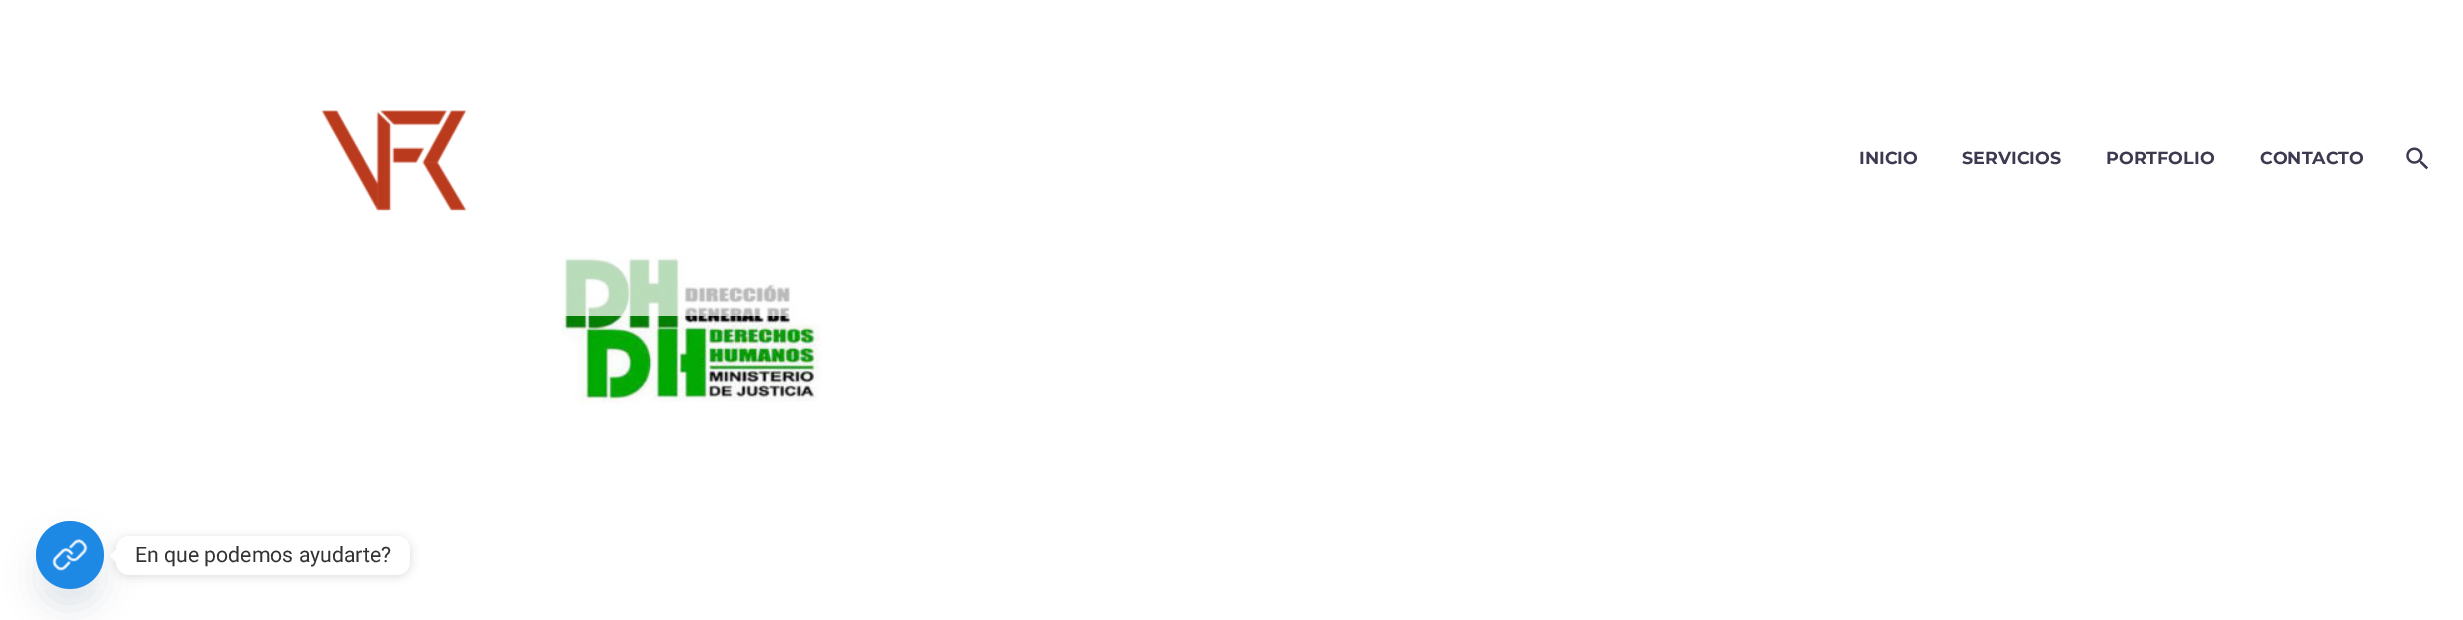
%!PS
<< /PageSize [2463 620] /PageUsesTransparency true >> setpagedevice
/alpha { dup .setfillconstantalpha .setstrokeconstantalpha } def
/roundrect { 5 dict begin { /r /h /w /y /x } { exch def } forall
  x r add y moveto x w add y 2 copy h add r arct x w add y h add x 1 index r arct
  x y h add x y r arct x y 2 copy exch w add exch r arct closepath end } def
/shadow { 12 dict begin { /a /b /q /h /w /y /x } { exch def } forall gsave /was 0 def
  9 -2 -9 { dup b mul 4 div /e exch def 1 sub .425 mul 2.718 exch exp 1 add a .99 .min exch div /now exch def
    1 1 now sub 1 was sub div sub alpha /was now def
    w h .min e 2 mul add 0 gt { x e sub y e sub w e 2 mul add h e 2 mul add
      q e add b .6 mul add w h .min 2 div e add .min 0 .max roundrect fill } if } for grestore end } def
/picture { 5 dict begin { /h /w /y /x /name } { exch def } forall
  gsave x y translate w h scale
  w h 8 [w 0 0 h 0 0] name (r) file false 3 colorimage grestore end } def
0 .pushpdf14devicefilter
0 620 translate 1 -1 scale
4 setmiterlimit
1 setgray
0 0 2463 620 rectfill
(img1.rgb) 321 110 146 101 picture
/Montserrat-Bold [17.5 0 0 -17.5 0 0] selectfont
0.235 0.224 0.314 setrgbcolor
1859 164 moveto (INICIO) show
1962 164 moveto (SERVICIOS) show
2106 164 moveto (PORTFOLIO) show
2260 164 moveto (CONTACTO) show
(img2.rgb) 2406 147 22 23 picture
(img3.rgb) 561 254 261 151 picture
0.72 alpha
1 setgray
561 254 231 62 rectfill
1 alpha
0.286 0.408 0.494 setrgbcolor
36 541 68 68 34 15 0.16 shadow
0.118 0.533 0.898 setrgbcolor
newpath 70 555 34 0 360 arc closepath fill
(img4.rgb) 36 521 69 69 picture
0 setgray
116 538 294 38 13 5 0.15 shadow
1 setgray
116 536 294 39 13 roundrect fill
newpath 116 549.5 moveto 116 562 lineto 110 555.5 lineto closepath fill
/Roboto-Regular [21.25 0 0 -21.25 0 0] selectfont
0.2 setgray
135 562 moveto (En que podemos ayudarte?) show
.poppdf14devicefilter showpage
